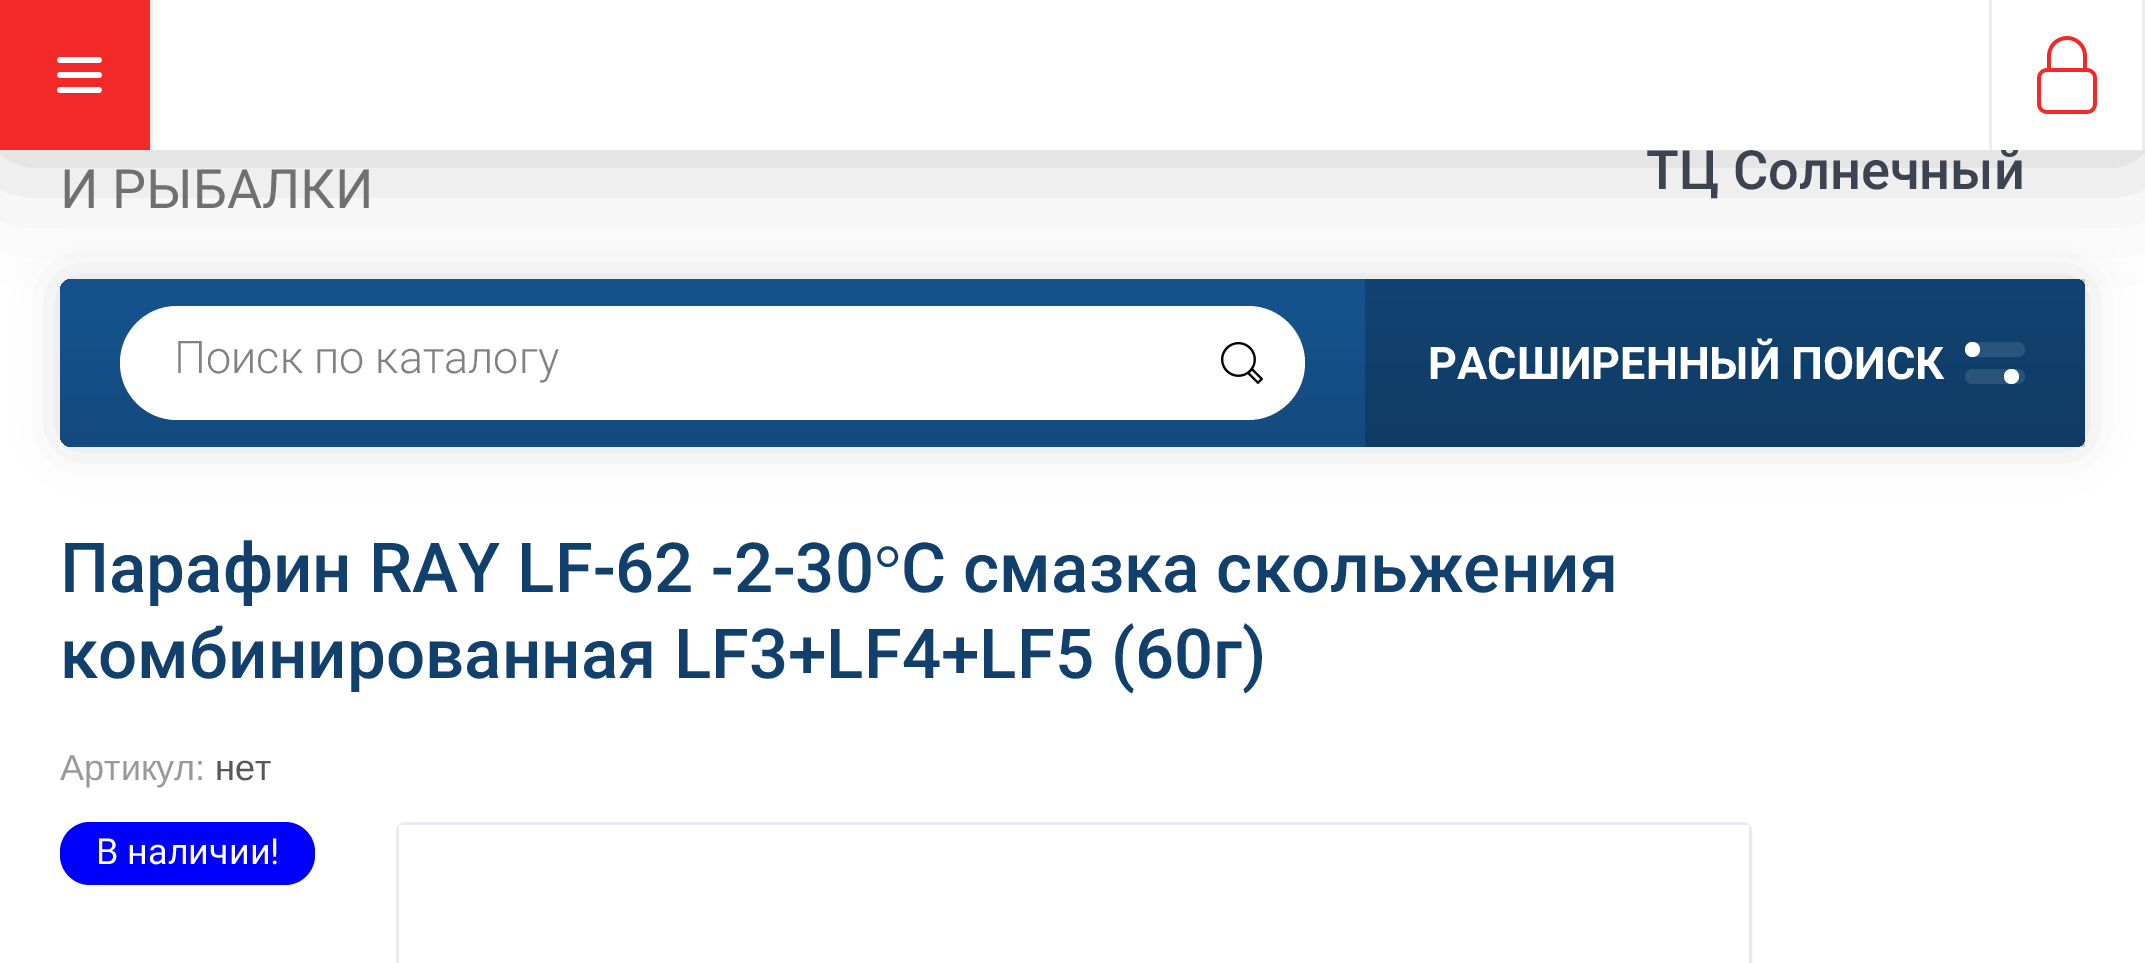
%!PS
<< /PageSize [2145 963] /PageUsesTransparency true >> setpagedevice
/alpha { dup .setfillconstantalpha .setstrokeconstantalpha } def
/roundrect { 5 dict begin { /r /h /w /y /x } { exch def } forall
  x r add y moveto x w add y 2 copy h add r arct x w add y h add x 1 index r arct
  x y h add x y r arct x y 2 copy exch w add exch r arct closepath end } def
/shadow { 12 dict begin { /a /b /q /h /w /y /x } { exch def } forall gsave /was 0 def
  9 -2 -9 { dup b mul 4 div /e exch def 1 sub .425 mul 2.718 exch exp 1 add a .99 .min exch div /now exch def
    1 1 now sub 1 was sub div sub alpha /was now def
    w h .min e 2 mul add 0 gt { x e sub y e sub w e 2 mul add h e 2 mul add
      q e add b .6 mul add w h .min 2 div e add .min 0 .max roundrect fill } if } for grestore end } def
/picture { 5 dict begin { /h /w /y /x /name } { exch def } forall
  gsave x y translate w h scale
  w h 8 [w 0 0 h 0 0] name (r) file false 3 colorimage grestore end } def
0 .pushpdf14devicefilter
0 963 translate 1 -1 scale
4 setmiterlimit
1 setgray
0 0 2145 963 rectfill
0 setgray
60 279 2025 168 12 22.5 0.13 shadow
gsave newpath 72 279 moveto 2076 279 lineto 2081 279 2085 283 2085 288 curveto 2085 438 lineto 2085 443 2081 447 2076 447 curveto 72 447 lineto 65.5 447 60 441.5 60 435 curveto 60 291 lineto 60 284.5 65.5 279 72 279 curveto closepath clip newpath
<< /ShadingType 2 /ColorSpace /DeviceRGB /Coords [1073 447 1073 279] /Extend [true true] /Function << /FunctionType 2 /Domain [0 1] /C0 [0.078 0.29 0.494] /C1 [0.086 0.329 0.557] /N 1 >> >> shfill grestore
1 setgray
120 306 1185 114 57 roundrect fill
0.2 alpha
0 setgray
1365 279 720 168 rectfill
1 alpha
0 3 2145 150 0 60 0.2 shadow
/Roboto-Medium [54 0 0 -54 0 0] selectfont
0.235 0.267 0.322 setrgbcolor
1646 189 moveto (ТЦ Солнечный) show
1 setgray
153 0 1989 150 rectfill
0.953 0.161 0.161 setrgbcolor
0 0 150 150 rectfill
(img1.rgb) 57 57 45 36 picture
0.925 setgray
150 0 3 150 rectfill
1989 0 3 150 rectfill
2142 0 3 150 rectfill
(img2.rgb) 2037 36 60 78 picture
/Roboto-Regular [54 0 0 -54 0 0] selectfont
0.439 setgray
60 208 moveto (И РЫБАЛКИ) show
/Roboto-Light [45 0 0 -45 0 0] selectfont
0.506 setgray
174 373 moveto (Поиск по каталогу) show
(img3.rgb) 1221 342 42 42 picture
/Roboto-Bold [45 0 0 -45 0 0] selectfont
1 setgray
1428 379 moveto (РАСШИРЕННЫЙ ПОИСК) show
0.165 0.329 0.486 setrgbcolor
1965 342 60 15 7.5 roundrect fill
1 setgray
newpath 1972.5 349.5 7.5 0 360 arc closepath fill
0.165 0.325 0.478 setrgbcolor
1965 369 60 15 7.5 roundrect fill
1 setgray
newpath 2011.5 376.5 7.5 0 360 arc closepath fill
/Roboto-Medium [69 0 0 -69 0 0] selectfont
0.067 0.251 0.424 setrgbcolor
60 592 moveto (Парафин RAY LF-62 -2-30) show
/LiberationSerif-Regular [69 0 0 -69 0 0] selectfont
874 592 moveto (°) show
/Roboto-Medium [69 0 0 -69 0 0] selectfont
901 592 moveto (С смазка скольжения) show
60 678 moveto (комбинированная LF3+LF4+LF5 \(60г\)) show
/LiberationSans-Regular [36 0 0 -36 0 0] selectfont
0.6 setgray
60 780 moveto (Артикул:) show
0.345 setgray
215 780 moveto (нет) show
0.914 0.922 0.933 setrgbcolor
3 setlinewidth
397.5 823.5 1353 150 7.5 roundrect stroke
1 setgray
399 825 1350 5 rectfill
0 0 1 setrgbcolor
60 822 255 63 30 roundrect fill
/Roboto-Regular [36 0 0 -36 0 0] selectfont
1 setgray
96 864 moveto (В наличии!) show
.poppdf14devicefilter showpage
